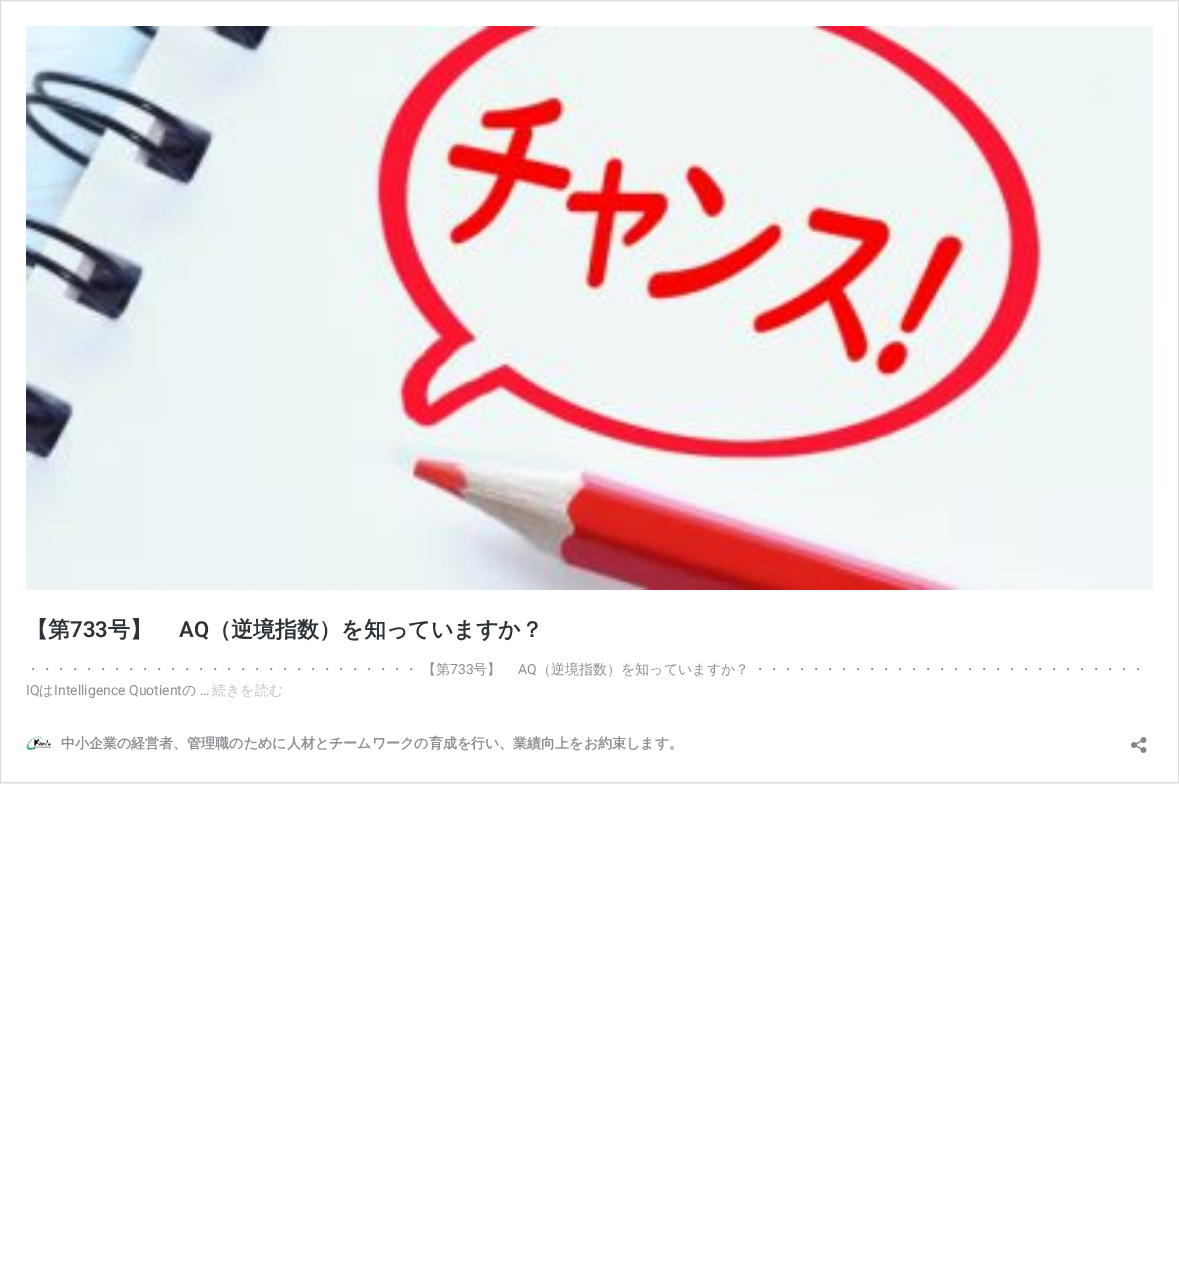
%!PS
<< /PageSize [1179 1276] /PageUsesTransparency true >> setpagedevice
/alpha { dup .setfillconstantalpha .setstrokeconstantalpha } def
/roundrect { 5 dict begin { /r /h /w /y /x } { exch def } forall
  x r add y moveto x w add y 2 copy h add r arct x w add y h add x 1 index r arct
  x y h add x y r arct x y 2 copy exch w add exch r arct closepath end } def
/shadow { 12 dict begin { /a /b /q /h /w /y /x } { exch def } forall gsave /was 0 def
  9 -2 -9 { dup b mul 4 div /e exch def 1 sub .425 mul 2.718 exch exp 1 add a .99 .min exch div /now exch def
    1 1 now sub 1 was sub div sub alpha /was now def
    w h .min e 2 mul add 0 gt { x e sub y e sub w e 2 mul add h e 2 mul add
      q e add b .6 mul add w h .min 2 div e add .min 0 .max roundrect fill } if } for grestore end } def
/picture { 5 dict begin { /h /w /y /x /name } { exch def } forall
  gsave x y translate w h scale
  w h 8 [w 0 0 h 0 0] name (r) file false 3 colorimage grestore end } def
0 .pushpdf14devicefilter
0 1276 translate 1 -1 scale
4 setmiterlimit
1 setgray
0 0 1179 1276 rectfill
gsave
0 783 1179 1 rectclip
0 setgray
0 1 1179 783 0 0.5 0.05 shadow
grestore
0.863 0.863 0.871 setrgbcolor
0.5 0.5 1178 782 rectstroke
(img1.rgb) 26 26 1127 564 picture
/WenQuanYiZenHei-Bold [22 0 0 -22 0 0] selectfont
0.173 0.2 0.22 setrgbcolor
26 637 moveto (【第) show
/Roboto-SemiBold [22 0 0 -22 0 0] selectfont
70 637 moveto (733) show
/WenQuanYiZenHei-Bold [22 0 0 -22 0 0] selectfont
108 637 moveto (号】) show
/Roboto-SemiBold [22 0 0 -22 0 0] selectfont
179 637 moveto (AQ) show
/WenQuanYiZenHei-Bold [22 0 0 -22 0 0] selectfont
209 637 moveto (（逆境指数）を知っていますか？) show
/WenQuanYiZenHei-Medium [14 0 0 -14 0 0] selectfont
0.549 0.561 0.58 setrgbcolor
26 674 moveto (・・・・・・・・・・・・・・・・・・・・・・・・・・・・ 【第) show
/Roboto-Regular [14 0 0 -14 0 0] selectfont
450 674 moveto (733) show
/WenQuanYiZenHei-Medium [14 0 0 -14 0 0] selectfont
473 674 moveto (号】) show
/Roboto-Regular [14 0 0 -14 0 0] selectfont
518 674 moveto (AQ) show
/WenQuanYiZenHei-Medium [14 0 0 -14 0 0] selectfont
537 674 moveto (（逆境指数）を知っていますか？ ・・・・・・・・・・・・・・・・・・・・・・・・・・・・) show
/Roboto-Regular [14 0 0 -14 0 0] selectfont
26 695 moveto (IQ) show
/WenQuanYiZenHei-Medium [14 0 0 -14 0 0] selectfont
39 695 moveto (は) show
/Roboto-Regular [14 0 0 -14 0 0] selectfont
54 695 moveto (Intelligence Quotient) show
/WenQuanYiZenHei-Medium [14 0 0 -14 0 0] selectfont
182 695 moveto (の) show
/Roboto-Regular [14 0 0 -14 0 0] selectfont
200 695 moveto (…) show
/WenQuanYiZenHei-Medium [14 0 0 -14 0 0] selectfont
0.765 0.769 0.78 setrgbcolor
212 695 moveto (続きを読む) show
(img2.rgb) 26 736 25 15 picture
/WenQuanYiZenHei-Bold [14 0 0 -14 0 0] selectfont
0.549 0.561 0.58 setrgbcolor
61 748 moveto (中小企業の経営者、管理職のために人材とチームワークの育成を行い、業績向上をお約束します。) show
(img3.rgb) 1131 737 16 16 picture
.poppdf14devicefilter showpage
